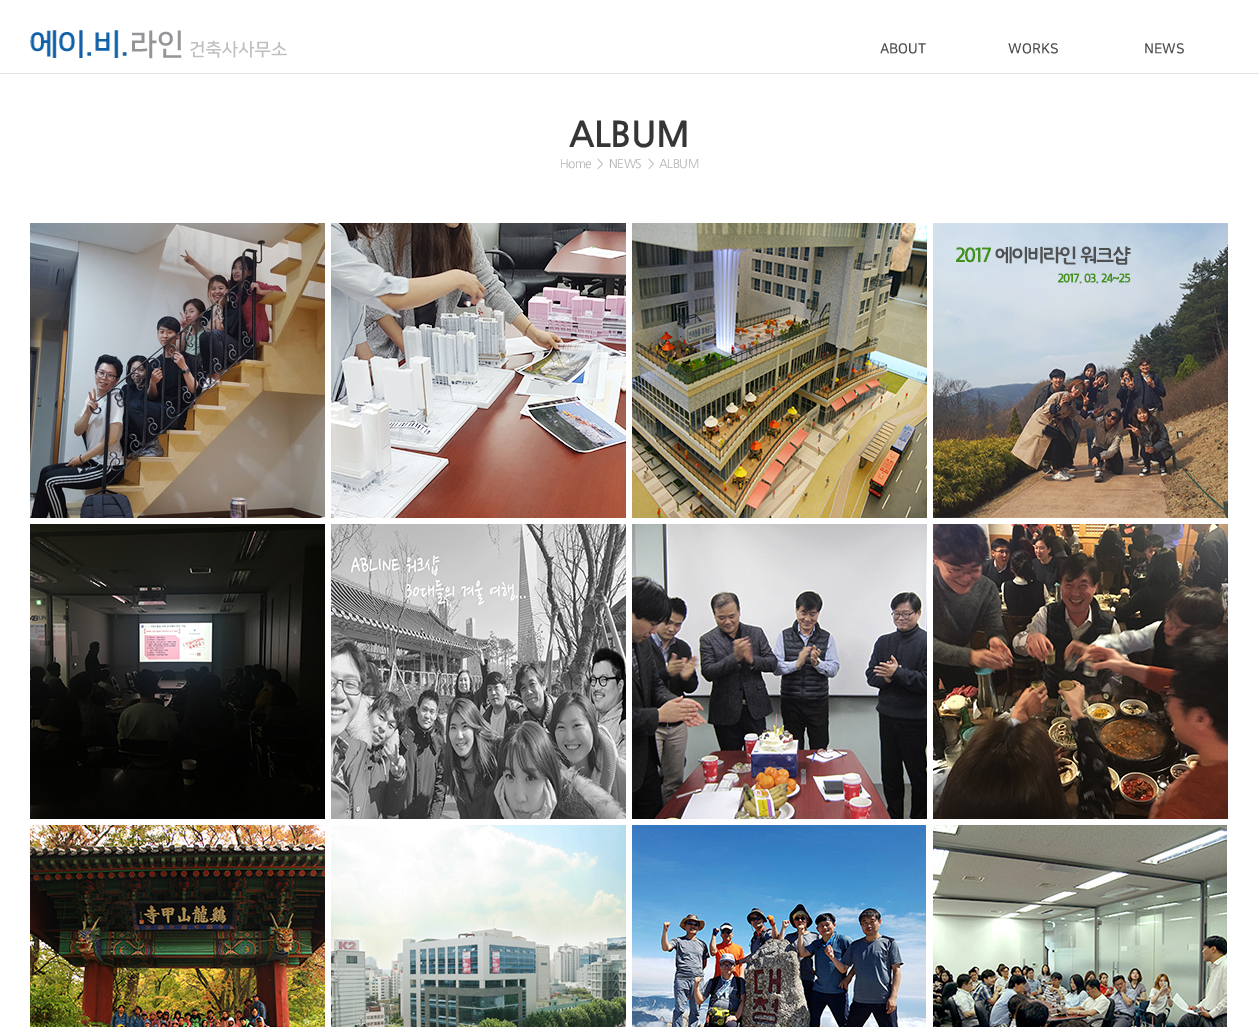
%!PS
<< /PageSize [1259 1027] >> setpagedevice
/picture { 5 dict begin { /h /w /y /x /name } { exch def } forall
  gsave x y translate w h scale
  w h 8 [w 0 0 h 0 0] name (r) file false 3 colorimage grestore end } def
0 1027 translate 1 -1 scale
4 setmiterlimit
1 setgray
0 0 1259 1027 rectfill
0.89 setgray
0 73 1259 1 rectfill
(img1.rgb) 30 29 257 33 picture
/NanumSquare-Bold [14 0 0 -14 0 0] selectfont
0.298 setgray
880 53 moveto (ABOUT) show
1008 53 moveto (WORKS) show
1144 53 moveto (NEWS) show
/NanumGothic-Bold [35 0 0 -35 0 0] selectfont
0.212 setgray
569 147 moveto -0.5 0 (ALBUM) ashow
/NanumGothic-Regular [12 0 0 -12 0 0] selectfont
0.694 setgray
560 168 moveto -0.5 0 (Home) ashow
597 168 moveto -0.5 0 (>) ashow
609 168 moveto -0.5 0 (NEWS) ashow
648 168 moveto -0.5 0 (>) ashow
659 168 moveto -0.5 0 (ALBUM) ashow
(img2.rgb) 30 223 295 295 picture
(img3.rgb) 331 223 295 295 picture
(img4.rgb) 632 223 295 295 picture
(img5.rgb) 933 223 295 295 picture
(img6.rgb) 30 524 295 295 picture
(img7.rgb) 331 524 295 295 picture
(img8.rgb) 632 524 295 295 picture
(img9.rgb) 933 524 295 295 picture
(img10.rgb) 30 825 295 202 picture
(img11.rgb) 331 825 295 202 picture
(img12.rgb) 632 825 294 202 picture
(img13.rgb) 933 825 294 202 picture
showpage
